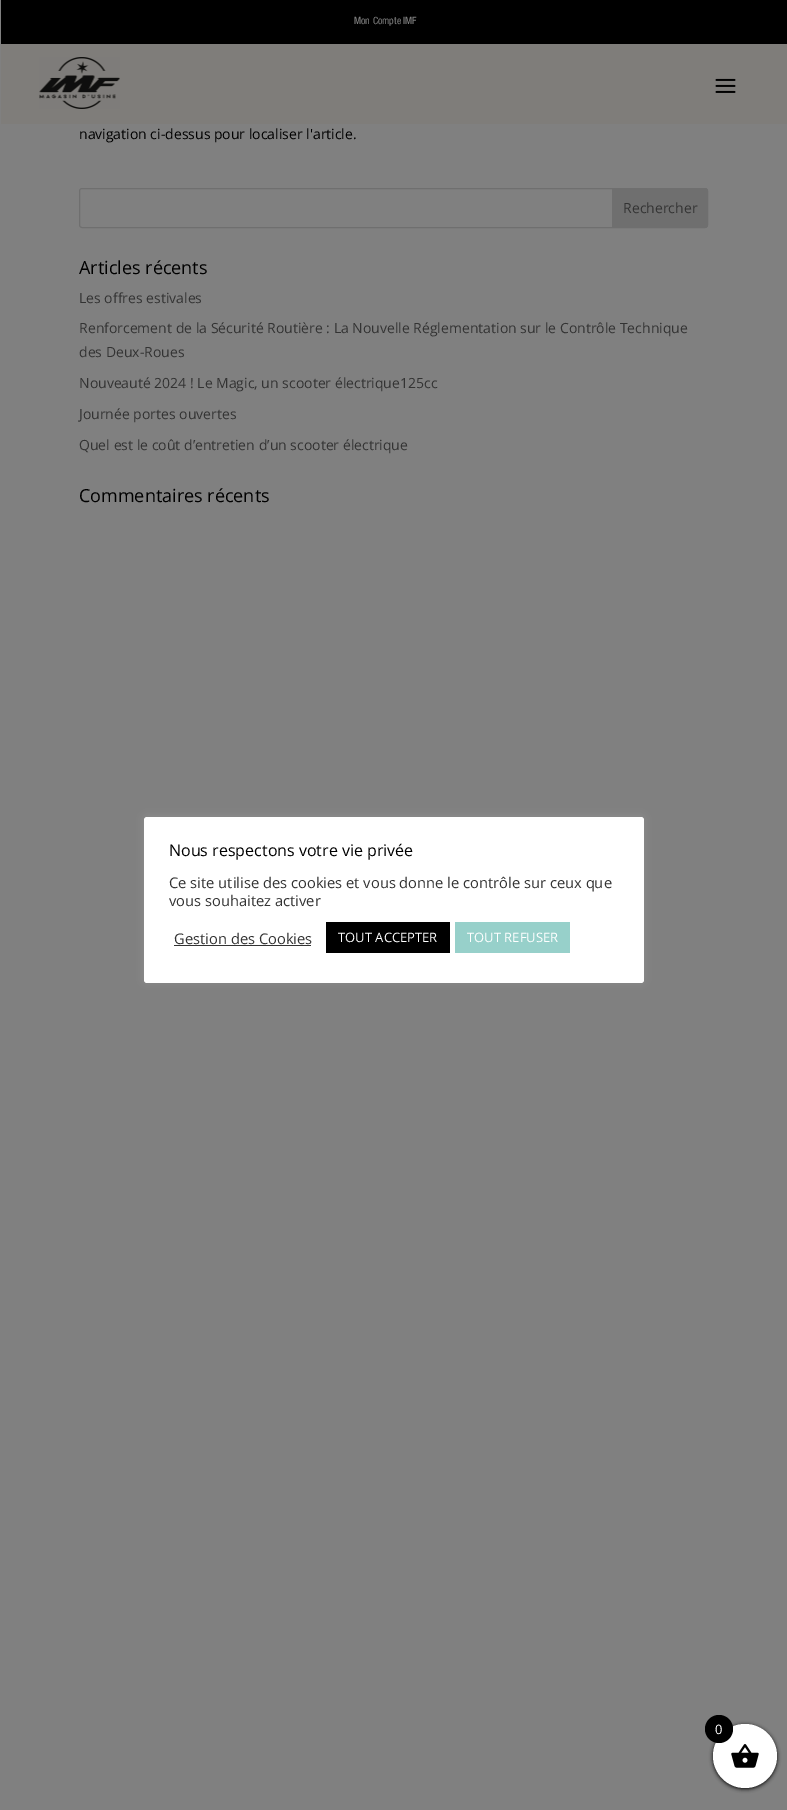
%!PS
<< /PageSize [787 1810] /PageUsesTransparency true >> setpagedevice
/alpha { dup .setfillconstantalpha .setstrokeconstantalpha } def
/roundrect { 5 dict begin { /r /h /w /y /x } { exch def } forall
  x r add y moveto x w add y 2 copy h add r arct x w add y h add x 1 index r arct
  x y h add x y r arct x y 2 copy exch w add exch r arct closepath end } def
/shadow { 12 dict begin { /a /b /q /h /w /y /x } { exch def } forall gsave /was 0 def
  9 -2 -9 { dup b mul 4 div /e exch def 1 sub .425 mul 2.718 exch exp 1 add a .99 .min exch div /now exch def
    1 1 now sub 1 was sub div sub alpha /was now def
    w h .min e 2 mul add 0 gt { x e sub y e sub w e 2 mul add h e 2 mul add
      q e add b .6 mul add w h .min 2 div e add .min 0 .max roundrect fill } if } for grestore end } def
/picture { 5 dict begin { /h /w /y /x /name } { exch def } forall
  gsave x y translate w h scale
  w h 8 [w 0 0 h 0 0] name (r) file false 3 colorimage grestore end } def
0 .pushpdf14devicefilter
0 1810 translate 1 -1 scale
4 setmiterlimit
0.502 setgray
0 0 787 1810 rectfill
0.498 0.49 0.478 setrgbcolor
1 44 786 80 rectfill
0 setgray
1 0 786 44 rectfill
/HelveticaNeue-Regular [10 0 0 -10 0 0] selectfont
0.502 setgray
354 24 moveto (Mon Compte IMF) show
(img1.rgb) 39 57 81 52 picture
(img2.rgb) 715 78 21 15 picture
/OpenSans-Regular [14 0 0 -14 0 0] selectfont
0 setgray
79 139 moveto (navigation ci-dessus pour localiser l'article.) show
0.435 setgray
79.5 188.5 628 39 2.5 roundrect stroke
newpath 612 188 moveto 705 188 lineto 706.5 188 708 189.5 708 191 curveto 708 225 lineto 708 226.5 706.5 228 705 228 curveto 612 228 lineto closepath fill
0.2 setgray
623 213 moveto (Rechercher) show
/OpenSans-Regular [18 0 0 -18 0 0] selectfont
0 setgray
79 274 moveto (Articles récents) show
/OpenSans-Regular [14 0 0 -14 0 0] selectfont
0.2 setgray
79 303 moveto (Les offres estivales) show
79 333 moveto (Renforcement de la Sécurité Routière : La Nouvelle Réglementation sur le Contrôle Technique) show
79 357 moveto (des Deux-Roues) show
79 388 moveto (Nouveauté 2024 ! Le Magic, un scooter électrique125cc) show
79 419 moveto (Journée portes ouvertes) show
79 450 moveto (Quel est le coût d’entretien d’un scooter électrique) show
/OpenSans-Regular [18 0 0 -18 0 0] selectfont
0 setgray
79 502 moveto (Commentaires récents) show
0.675 0.671 0.671 setrgbcolor
144 816 500 166 3 5 0.3 shadow
1 setgray
144 817 500 166 3 roundrect fill
/OpenSans-Regular [16 0 0 -16 0 0] selectfont
0 setgray
169 856 moveto (Nous respectons votre vie privée) show
/OpenSans-Regular [14.7 0 0 -14.7 0 0] selectfont
0.2 setgray
169 888 moveto (Ce site utilise des cookies et vous donne le contrôle sur ceux que) show
169 906 moveto (vous souhaitez activer) show
174 944 moveto (Gestion des Cookies) show
174 945 137 1 rectfill
0 setgray
326 922 124 31 rectfill
/OpenSans-Regular [13 0 0 -13 0 0] selectfont
1 setgray
338 942 moveto (TOUT ACCEPTER) show
0.592 0.816 0.792 setrgbcolor
455 922 115 31 rectfill
1 setgray
467 942 moveto (TOUT REFUSER) show
0 setgray
713 1725 64 64 32 2 1 shadow
1 setgray
newpath 745 1756 32 0 360 arc closepath fill
0 setgray
newpath 719 1729 14 0 360 arc closepath fill
1 setgray
715 1734 moveto (0) show
(img3.rgb) 731 1744 28 24 picture
.poppdf14devicefilter showpage
